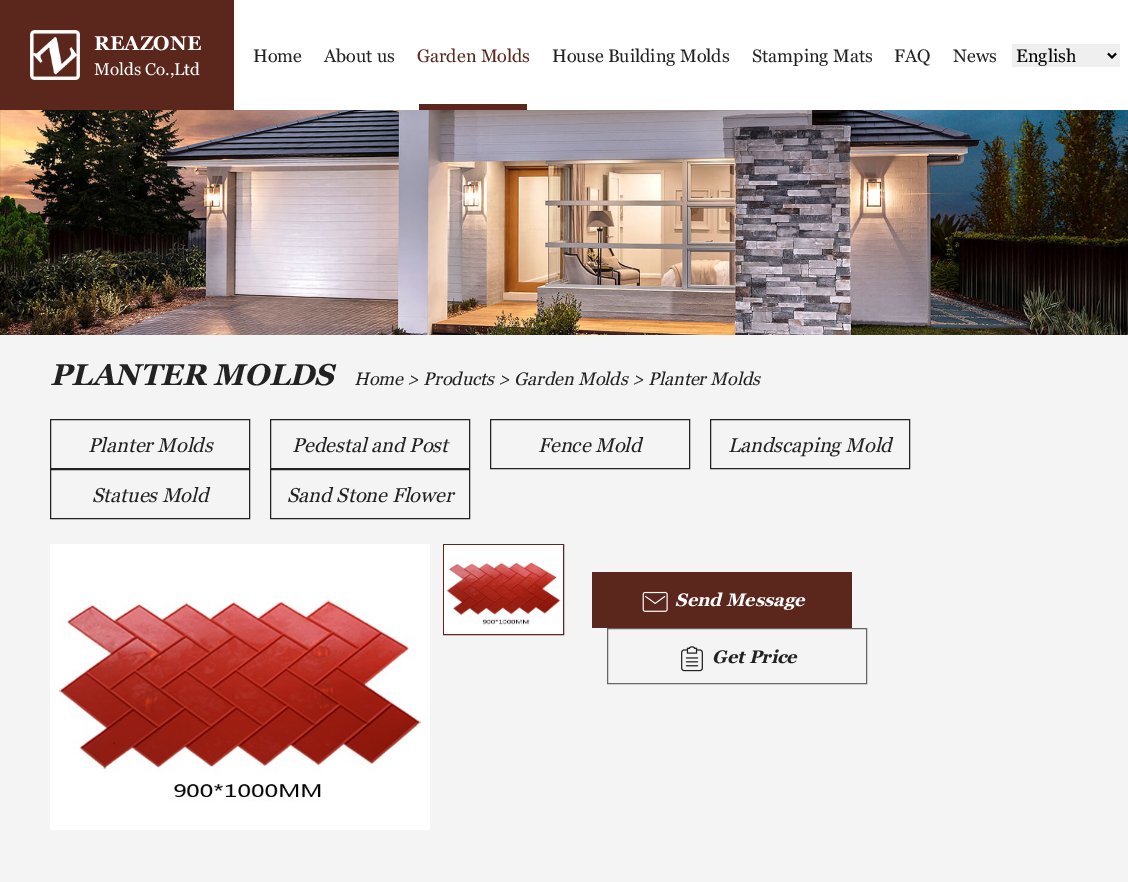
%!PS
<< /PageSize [1128 882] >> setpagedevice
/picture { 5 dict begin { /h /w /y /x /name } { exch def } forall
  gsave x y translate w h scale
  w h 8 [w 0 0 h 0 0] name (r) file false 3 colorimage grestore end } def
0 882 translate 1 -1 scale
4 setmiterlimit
1 setgray
0 0 1128 882 rectfill
0.357 0.153 0.11 setrgbcolor
0 0 234 110 rectfill
(img1.rgb) 30 30 50 50 picture
/Georgia-Bold [20 0 0 -20 0 0] selectfont
1 setgray
94 50 moveto (REAZONE) show
/Georgia-Regular [17 0 0 -17 0 0] selectfont
94 75 moveto (Molds Co.,Ltd) show
/Georgia-Regular [18 0 0 -18 0 0] selectfont
0.133 setgray
253 62 moveto (Home) show
324 62 moveto (About us) show
0.357 0.153 0.11 setrgbcolor
417 62 moveto (Garden Molds) show
419 104 108 6 rectfill
0.133 setgray
552 62 moveto (House Building Molds) show
752 62 moveto (Stamping Mats) show
894 62 moveto (FAQ) show
953 62 moveto (News) show
0.937 setgray
1012 44 108 23 rectfill
0 setgray
2 setlinewidth
newpath 1108 53.5 moveto 1112 57.5 lineto 1116 53.5 lineto stroke
1016 62 moveto (English) show
(img2.rgb) 0 110 1128 225 picture
0.957 setgray
0 335 1128 547 rectfill
/Georgia-BoldItalic [30 0 0 -30 0 0] selectfont
0.133 setgray
50 385 moveto (PLANTER MOLDS) show
/Georgia-Italic [18 0 0 -18 0 0] selectfont
354 385 moveto (Home > Products > Garden Molds > Planter Molds) show
1 setlinewidth
50.5 419.5 199 49 rectstroke
/Georgia-Italic [20 0 0 -20 0 0] selectfont
88 452 moveto (Planter Molds) show
270.5 419.5 199 49 rectstroke
292 452 moveto (Pedestal and Post) show
490.5 419.5 199 49 rectstroke
538 452 moveto (Fence Mold) show
710.5 419.5 199 49 rectstroke
728 452 moveto (Landscaping Mold) show
50.5 469.5 199 49 rectstroke
92 502 moveto (Statues Mold) show
270.5 469.5 199 49 rectstroke
287 502 moveto (Sand Stone Flower) show
(img3.rgb) 50 544 380 286 picture
0.357 0.153 0.11 setrgbcolor
443.5 544.5 120 90 rectstroke
(img4.rgb) 444 545 119 89 picture
592 572 260 56 rectfill
(img5.rgb) 642 591 26 21 picture
/Georgia-BoldItalic [18 0 0 -18 0 0] selectfont
1 setgray
675 606 moveto (Send Message) show
0.4 setgray
607.5 628.5 259 55 rectstroke
(img6.rgb) 681 646 22 26 picture
0.133 setgray
712 663 moveto (Get Price) show
showpage
